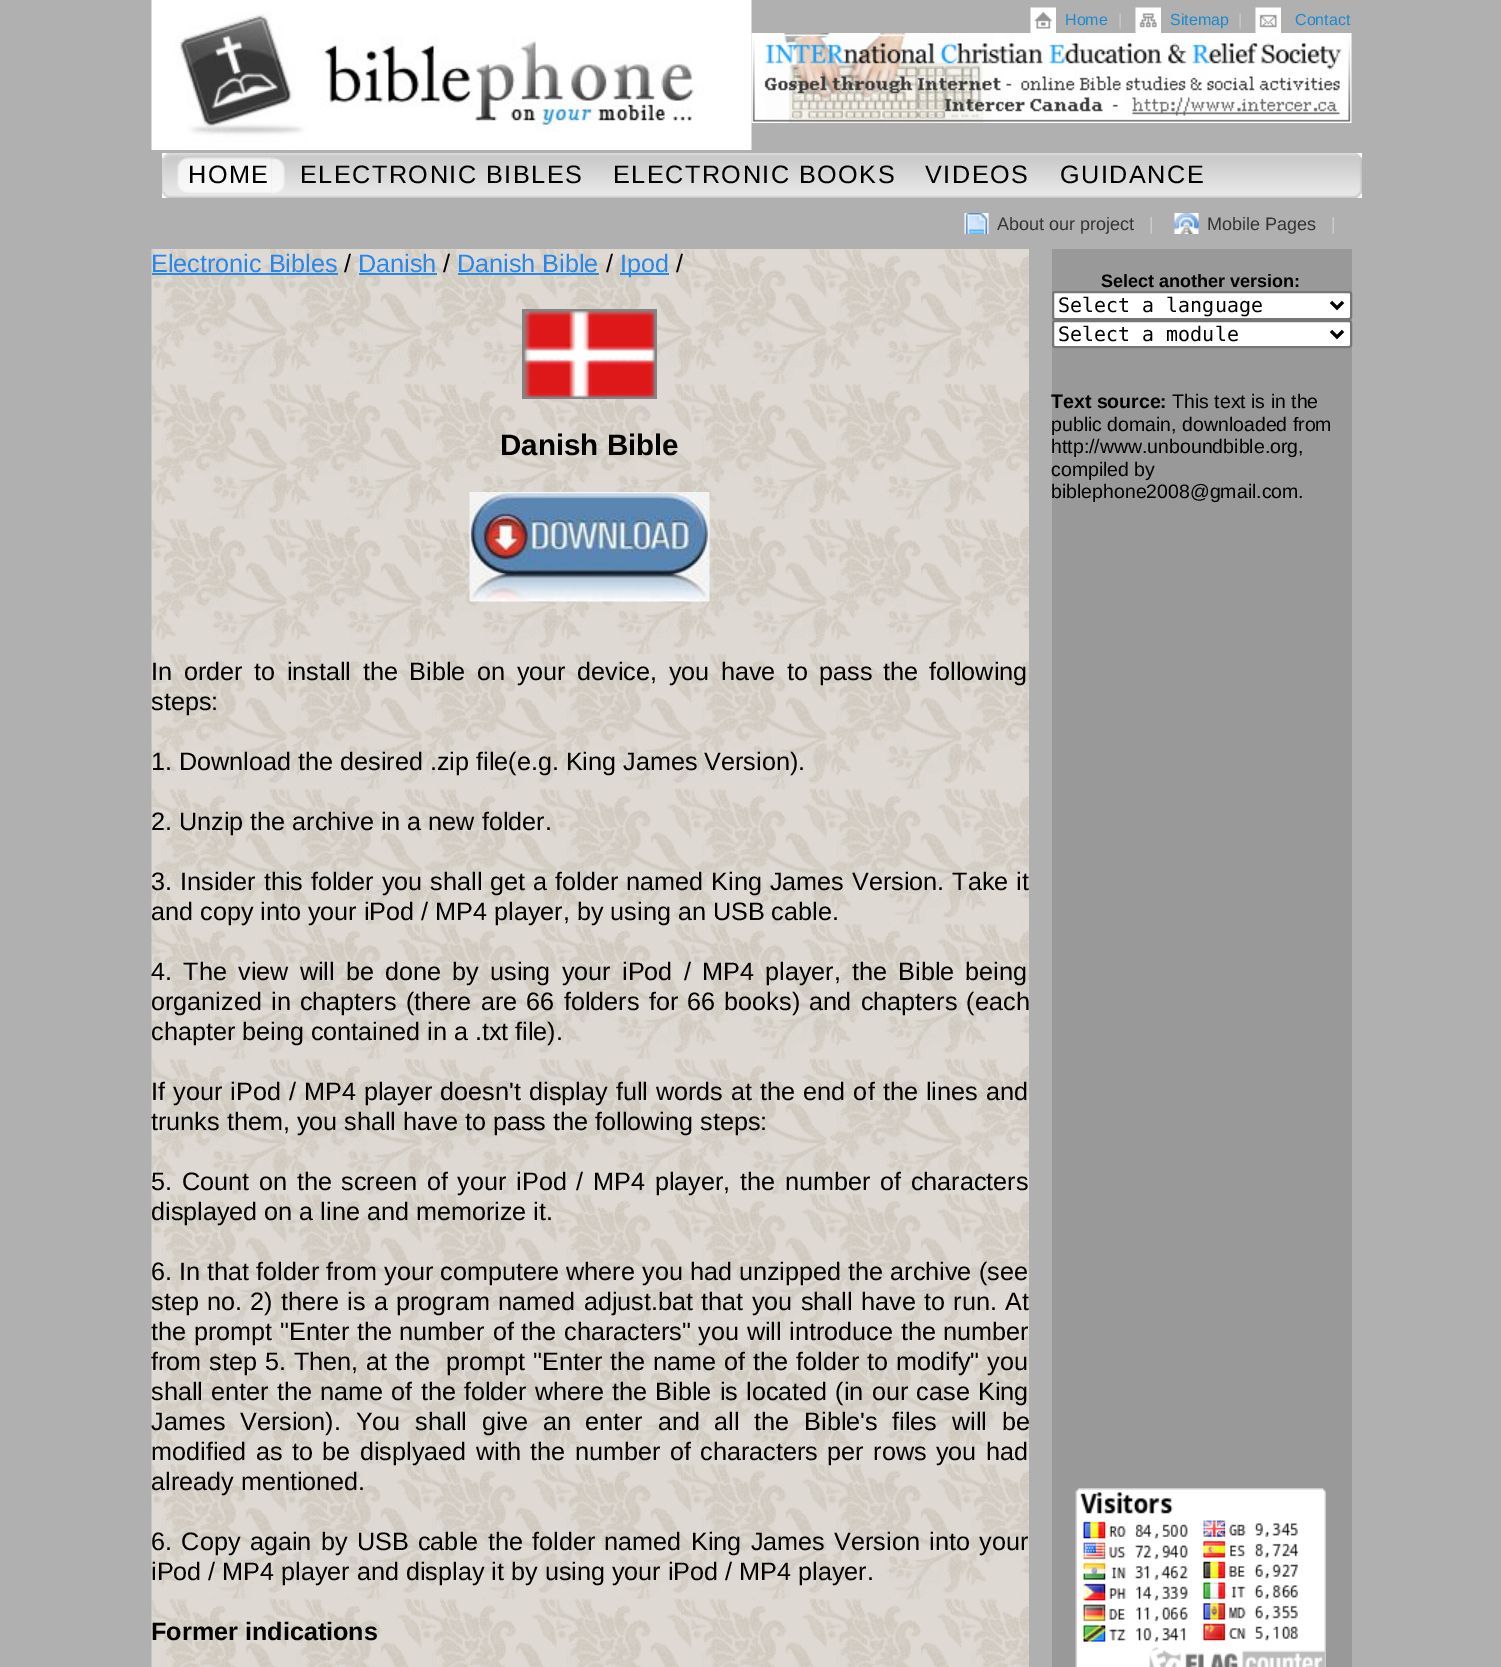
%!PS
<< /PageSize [1501 1667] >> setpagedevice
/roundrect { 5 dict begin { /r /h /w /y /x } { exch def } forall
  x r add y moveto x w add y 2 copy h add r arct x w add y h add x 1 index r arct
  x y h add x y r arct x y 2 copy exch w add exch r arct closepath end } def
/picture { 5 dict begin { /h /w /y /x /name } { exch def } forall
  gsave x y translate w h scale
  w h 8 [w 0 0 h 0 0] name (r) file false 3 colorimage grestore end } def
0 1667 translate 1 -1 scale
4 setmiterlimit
0.69 setgray
0 0 1501 1667 rectfill
(img1.rgb) 151 0 601 150 picture
(img2.rgb) 1030 7 26 26 picture
/LiberationSans-Regular [16 0 0 -16 0 0] selectfont
0.118 0.541 0.808 setrgbcolor
1065 25 moveto (Home) show
0.8 setgray
1118 25 moveto (|) show
(img3.rgb) 1135 7 26 26 picture
0.118 0.541 0.808 setrgbcolor
1170 25 moveto (Sitemap) show
0.8 setgray
1238 25 moveto (|) show
(img4.rgb) 1255 7 26 26 picture
0.118 0.541 0.808 setrgbcolor
1295 25 moveto (Contact) show
(img5.rgb) 751 33 601 90 picture
(img6.rgb) 162 153 1200 45 picture
(img7.rgb) 271 157 14 37 picture
(img8.rgb) 177 157 95 36 picture
/LiberationSans-Regular [25.2 0 0 -25.2 0 0] selectfont
0 setgray
188 183 moveto 1.5 0 (HOME) ashow
300 183 moveto 1.5 0 (ELECTRONIC BIBLES) ashow
613 183 moveto 1.5 0 (ELECTRONIC BOOKS) ashow
925 183 moveto 1.5 0 (VIDEOS) ashow
1060 183 moveto 1.5 0 (GUIDANCE) ashow
(img9.rgb) 964 213 25 21 picture
/LiberationSans-Regular [18 0 0 -18 0 0] selectfont
0.2 setgray
997 230 moveto (About our project) show
0.8 setgray
1149 230 moveto (|) show
(img10.rgb) 1174 213 25 21 picture
0.2 setgray
1207 230 moveto (Mobile Pages) show
0.8 setgray
1331 230 moveto (|) show
(img11.rgb) 151 249 878 1418 picture
/LiberationSans-Regular [25.2 0 0 -25.2 0 0] selectfont
0.153 0.529 0.922 setrgbcolor
151 272 moveto (Electronic Bibles) show
152 273 186 2 rectfill
0 setgray
344 272 moveto (/) show
0.153 0.529 0.922 setrgbcolor
358 272 moveto (Danish) show
359 273 78 2 rectfill
0 setgray
443 272 moveto (/) show
0.153 0.529 0.922 setrgbcolor
457 272 moveto (Danish Bible) show
458 273 141 2 rectfill
0 setgray
606 272 moveto (/) show
0.153 0.529 0.922 setrgbcolor
620 273 49 2 rectfill
620 272 moveto (Ipod) show
0 setgray
676 272 moveto (/) show
(img12.rgb) 522 309 135 90 picture
/LiberationSans-Bold [29.5 0 0 -29.5 0 0] selectfont
500 455 moveto (Danish Bible) show
(img13.rgb) 469 492 241 110 picture
/LiberationSans-Regular [25.2 0 0 -25.2 0 0] selectfont
151 680 moveto 4.6 0 32 (In order to install the Bible on your device, you have to) widthshow
819 680 moveto 4 0 32 (pass the following) widthshow
151 710 moveto (steps:) show
151 770 moveto (1. Download the desired .zip file\(e.g. King James Version\).) show
151 830 moveto (2. Unzip the archive in a new folder.) show
151 890 moveto 1 0 32 (3. Insider this folder you shall get a folder named King James Version. Take it) widthshow
151 920 moveto (and copy into your iPod / MP4 player, by using an USB cable.) show
151 980 moveto 4.25 0 32 (4. The view will be done by using your iPod / MP4 player, the Bible being) widthshow
151 1010 moveto 2.25 0 32 (organized in chapters \(there are 66 folders for 66 books\) and chapters \(each) widthshow
151 1040 moveto (chapter being contained in a .txt file\).) show
151 1100 moveto 1.1 0 32 (If your iPod / MP4 player doesn't display full words at the end of the lines and) widthshow
151 1130 moveto (trunks them, you shall have to pass the following steps:) show
151 1190 moveto 2.75 0 32 (5. Count on the screen of your iPod / MP4 player, the number of characters) widthshow
151 1220 moveto (displayed on a line and memorize it.) show
151 1280 moveto 0.1 0 32 (6. In that folder from your computere where you had unzipped the archive \(see) widthshow
151 1310 moveto 1.4 0 32 (step no. 2\) there is a program named adjust.bat that you shall have to run. At) widthshow
151 1340 moveto 0.7 0 32 (the prompt "Enter the number of the characters" you will introduce the number) widthshow
151 1370 moveto 1 0 32 (from step 5. Then, at the  prompt "Enter the name of the folder to modify" you) widthshow
151 1400 moveto 1.25 0 32 (shall enter the name of the folder where the Bible is located \(in our case King) widthshow
151 1430 moveto 7.75 0 32 (James Version\). You shall give an enter and all the Bible's files will be) widthshow
151 1460 moveto 2.5 0 32 (modified as to be displyaed with the number of characters per rows you had) widthshow
151 1490 moveto (already mentioned.) show
151 1550 moveto 2.4 0 32 (6. Copy again by USB cable the folder named King James Version into your) widthshow
151 1580 moveto (iPod / MP4 player and display it by using your iPod / MP4 player.) show
/LiberationSans-Bold [25.2 0 0 -25.2 0 0] selectfont
151 1640 moveto (Former indications) show
0.6 setgray
1052 249 300 1418 rectfill
/LiberationSans-Bold [18 0 0 -18 0 0] selectfont
0 setgray
1101 287 moveto (Select another version:) show
1 setgray
1053 292 298 27 2 roundrect gsave fill grestore
0.463 setgray
2 setlinewidth
stroke
0 setgray
3 setlinewidth
newpath 1331 302 moveto 1337 308 lineto 1343 302 lineto stroke
/DejaVuSansMono-Regular [20 0 0 -20 0 0] selectfont
1058 312 moveto (Select a language) show
1 setgray
1053 321 298 26 2 roundrect gsave fill grestore
0.463 setgray
2 setlinewidth
stroke
0 setgray
3 setlinewidth
newpath 1331 331 moveto 1337 337 lineto 1343 331 lineto stroke
1058 341 moveto (Select a module) show
/LiberationSans-Bold [19.5 0 0 -19.5 0 0] selectfont
1051 408 moveto (Text source:) show
/LiberationSans-Regular [19.5 0 0 -19.5 0 0] selectfont
1172 408 moveto (This text is in the) show
1051 431 moveto (public domain, downloaded from) show
1051 453 moveto (http://www.unboundbible.org,) show
1051 476 moveto (compiled by) show
1051 498 moveto (biblephone2008@gmail.com.) show
(img14.rgb) 1075 1488 251 179 picture
showpage
